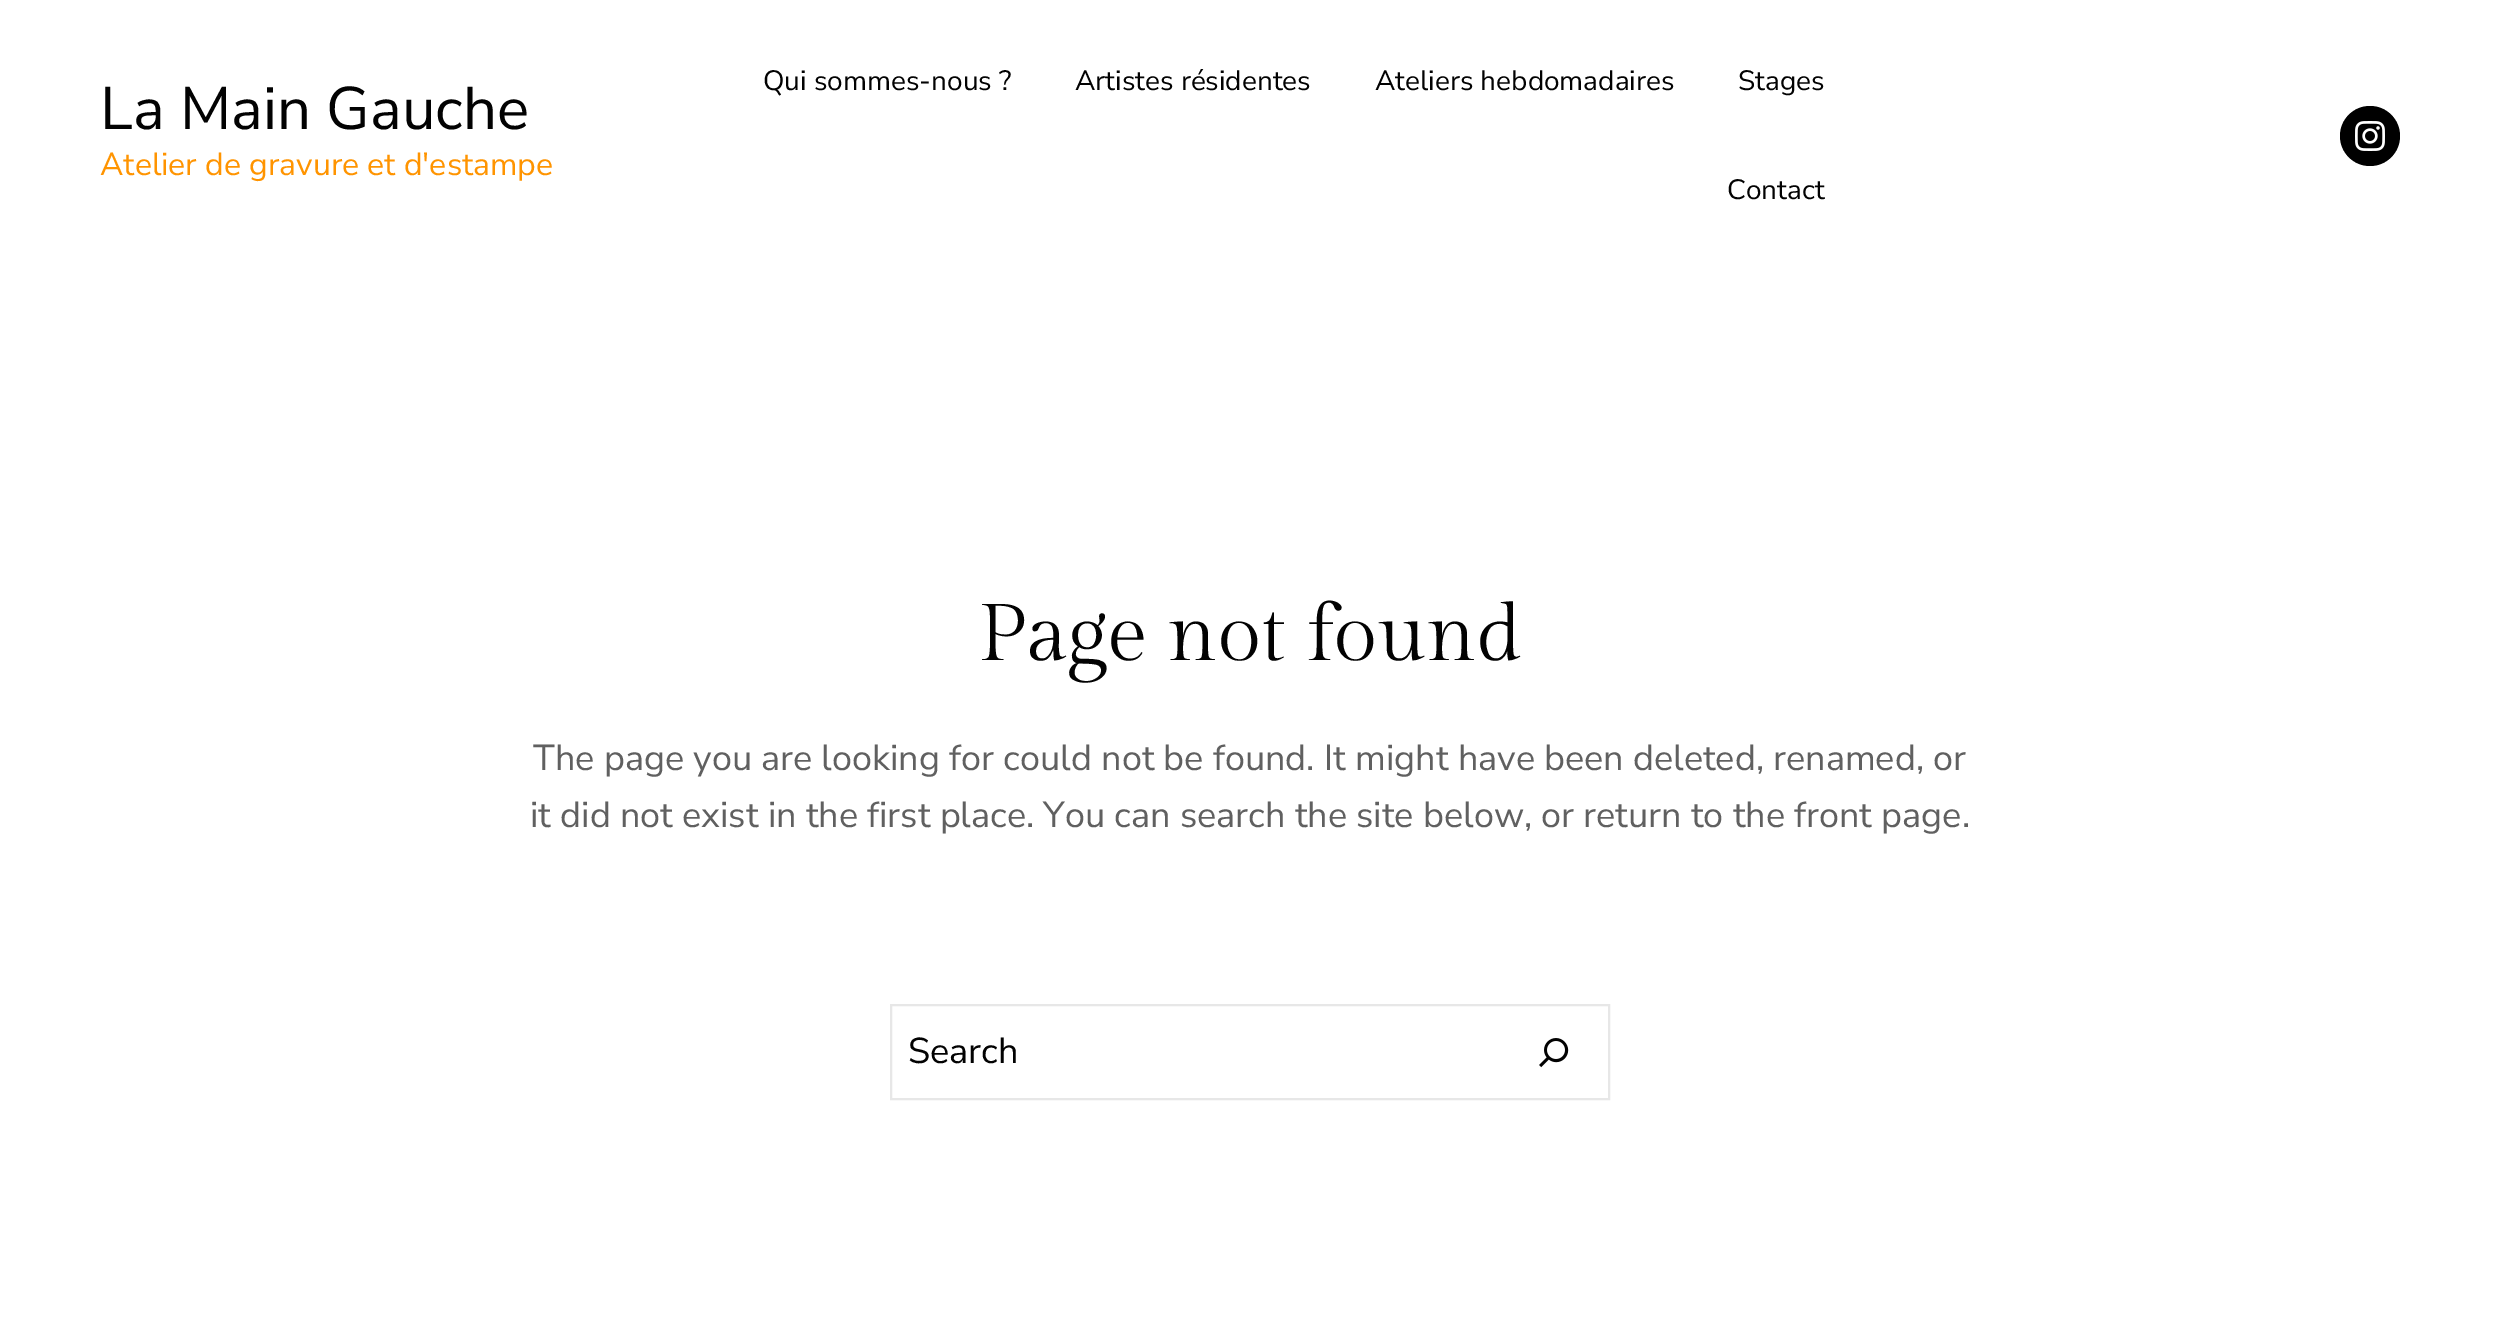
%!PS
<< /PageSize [2500 1342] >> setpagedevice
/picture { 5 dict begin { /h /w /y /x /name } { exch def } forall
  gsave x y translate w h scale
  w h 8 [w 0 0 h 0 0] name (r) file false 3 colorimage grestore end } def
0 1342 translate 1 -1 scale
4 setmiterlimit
1 setgray
0 0 2500 1342 rectfill
/NunitoSans-Regular [60 0 0 -60 0 0] selectfont
0.008 setgray
100 129 moveto (La Main Gauche) show
/NunitoSans-Regular [32 0 0 -32 0 0] selectfont
1 0.58 0 setrgbcolor
100 175 moveto (Atelier de gravure et d'estampe) show
/NunitoSans-Regular [28 0 0 -28 0 0] selectfont
0.008 setgray
763 90 moveto (Qui sommes-nous ?) show
1075 90 moveto (Artistes résidentes) show
1375 90 moveto (Ateliers hebdomadaires) show
1738 90 moveto (Stages) show
1727 199 moveto (Contact) show
0 setgray
newpath 2370 136 30 0 360 arc closepath fill
(img1.rgb) 2355 121 30 30 picture
/GildaDisplay-Regular [80 0 0 -80 0 0] selectfont
0.008 setgray
978 660 moveto (Page not found) show
/NunitoSans-Regular [36 0 0 -36 0 0] selectfont
0.376 setgray
533 770 moveto (The page you are looking for could not be found. It might have been deleted, renamed, or) show
530 827 moveto (it did not exist in the first place. You can search the site below, or return to the front page.) show
0.906 setgray
2 setlinewidth
891 1005 718 94 rectstroke
0.008 setgray
908 1063 moveto (Search) show
(img2.rgb) 1539 1038 30 30 picture
showpage
